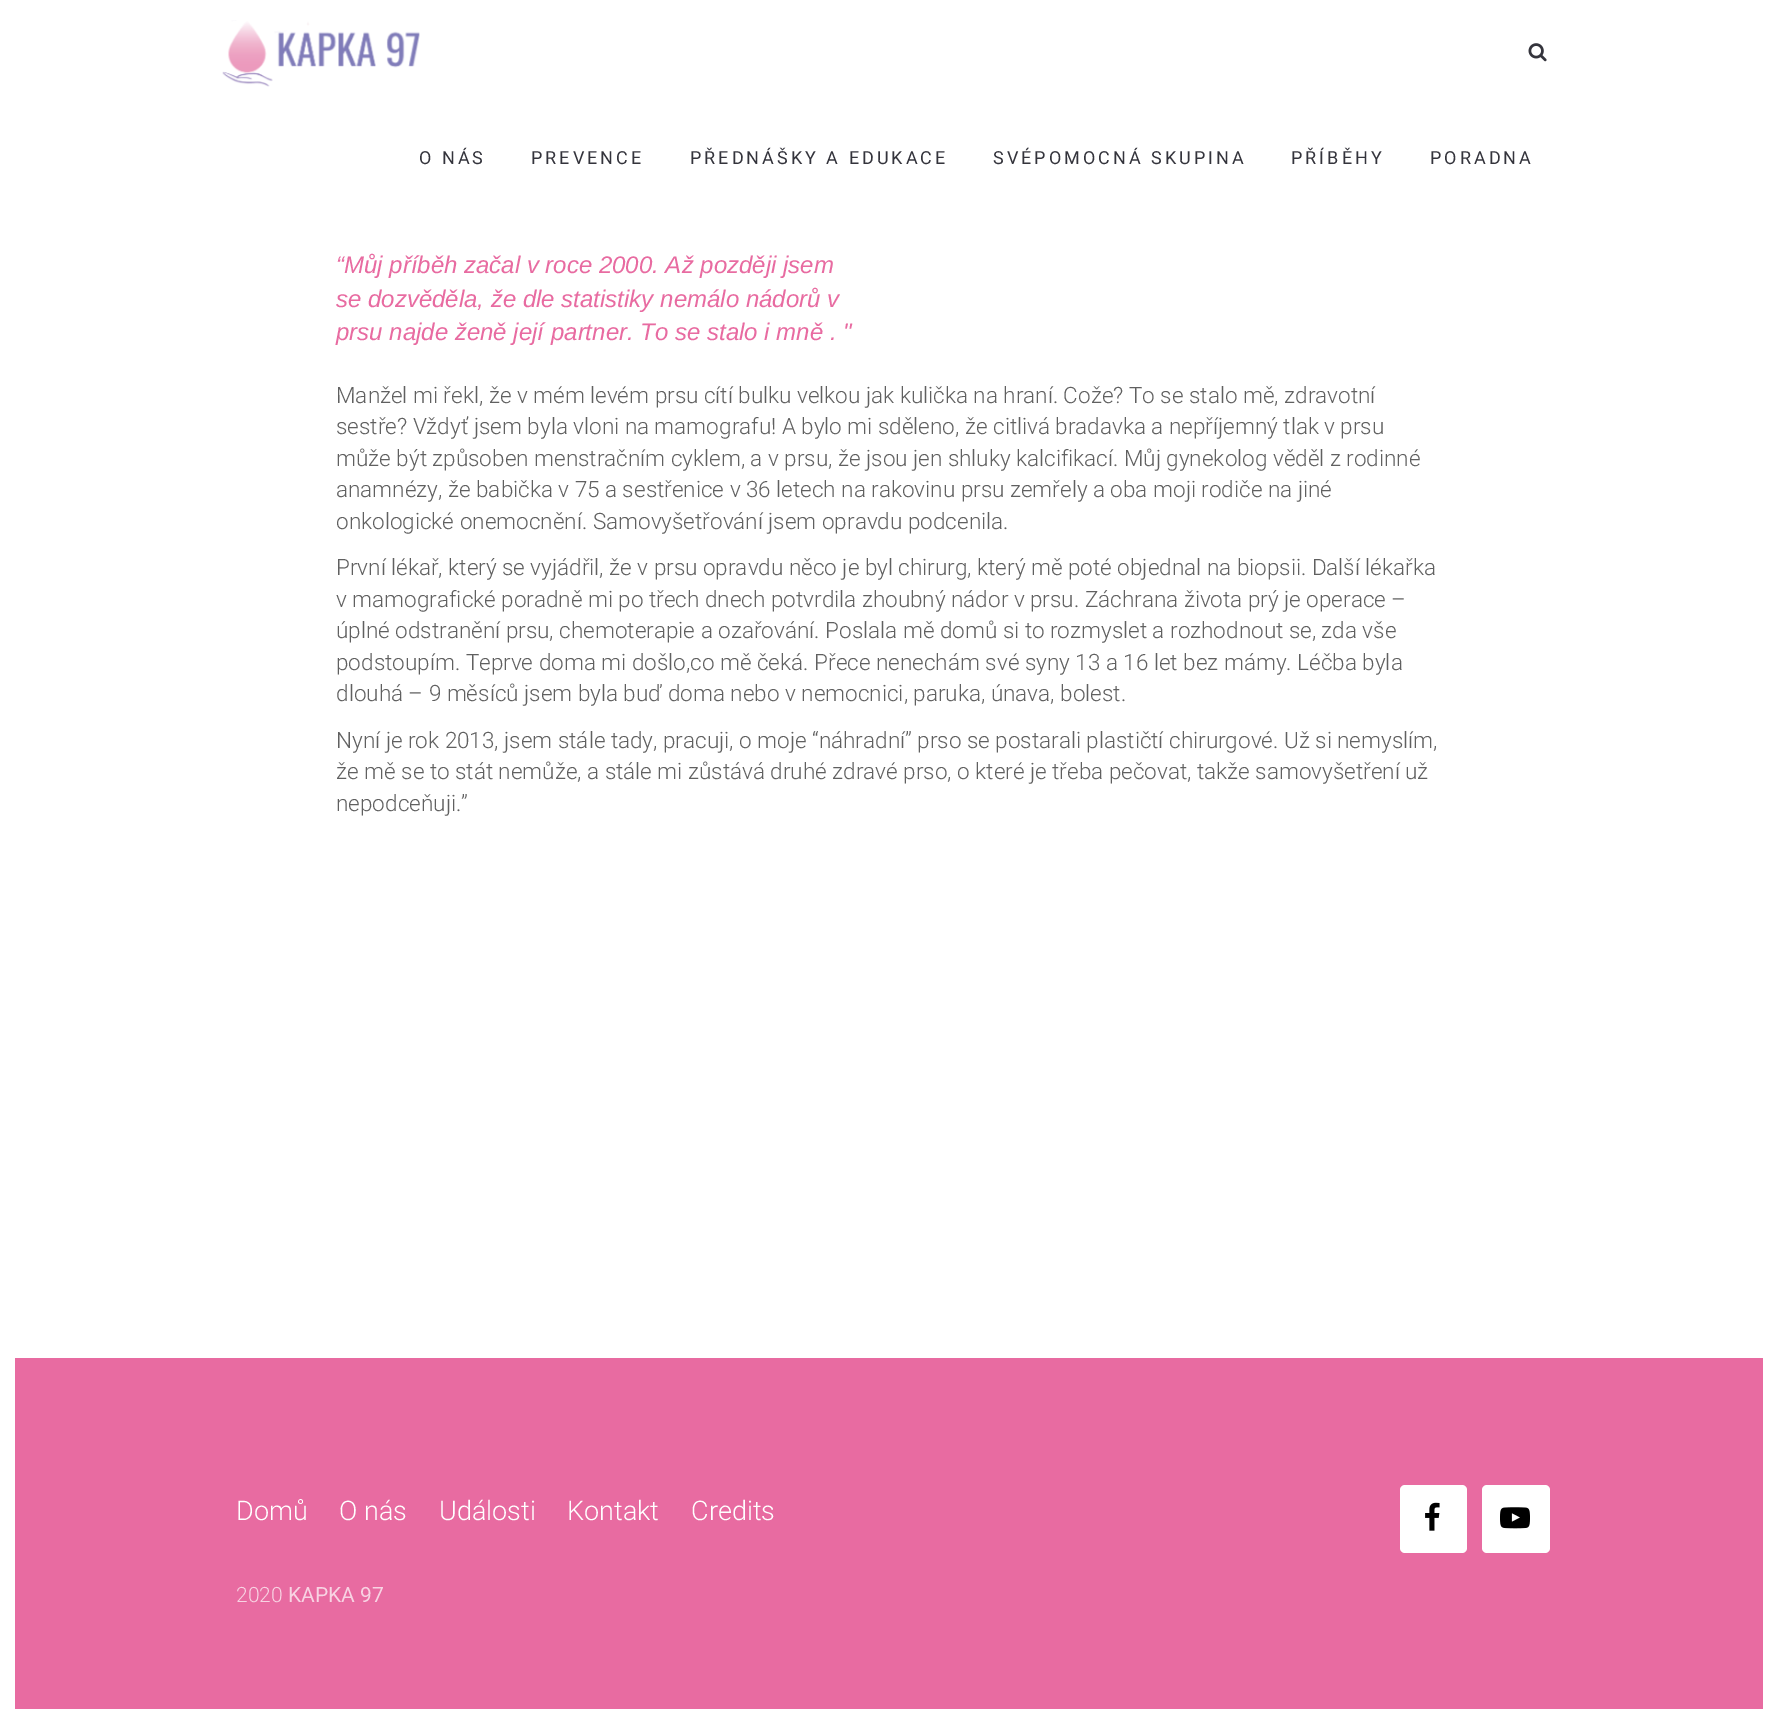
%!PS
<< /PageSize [1777 1709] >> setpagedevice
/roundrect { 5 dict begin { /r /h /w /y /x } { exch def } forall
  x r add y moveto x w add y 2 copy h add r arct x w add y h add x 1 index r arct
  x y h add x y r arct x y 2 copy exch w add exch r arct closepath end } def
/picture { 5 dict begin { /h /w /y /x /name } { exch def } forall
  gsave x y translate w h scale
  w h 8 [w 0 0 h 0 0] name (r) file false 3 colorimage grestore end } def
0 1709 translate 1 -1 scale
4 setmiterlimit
1 setgray
0 0 1777 1709 rectfill
(img1.rgb) 222 20 198 67 picture
(img2.rgb) 1528 43 19 19 picture
/Roboto-Regular [18 0 0 -18 0 0] selectfont
0.204 0.204 0.235 setrgbcolor
419 164 moveto 3 0 (O NÁS) ashow
531 164 moveto 3 0 (PREVENCE) ashow
690 164 moveto 3 0 (PŘEDNÁŠKY A EDUKACE) ashow
993 164 moveto 3 0 (SVÉPOMOCNÁ SKUPINA) ashow
1291 164 moveto 3 0 (PŘÍBĚHY) ashow
1430 164 moveto 3 0 (PORADNA) ashow
/LiberationSans-Italic [24 0 0 -24 0 0] selectfont
0.91 0.42 0.631 setrgbcolor
336 273 moveto (“Můj příběh začal v roce 2000. Až později jsem) show
336 307 moveto (se dozvěděla, že dle statistiky nemálo nádorů v) show
336 340 moveto (prsu najde ženě její partner. To se stalo i mně . ") show
/Roboto-Light [22.5 0 0 -22.5 0 0] selectfont
0.376 setgray
336 403 moveto (Manžel mi řekl, že v mém levém prsu cítí bulku velkou jak kulička na hraní. Cože? To se stalo mě, zdravotní) show
336 434 moveto (sestře? Vždyť jsem byla vloni na mamografu! A bylo mi sděleno, že citlivá bradavka a nepříjemný tlak v prsu) show
336 466 moveto (může být způsoben menstračním cyklem, a v prsu, že jsou jen shluky kalcifikací. Můj gynekolog věděl z rodinné) show
336 497 moveto (anamnézy, že babička v 75 a sestřenice v 36 letech na rakovinu prsu zemřely a oba moji rodiče na jiné) show
336 529 moveto (onkologické onemocnění. Samovyšetřování jsem opravdu podcenila.) show
336 575 moveto (První lékař, který se vyjádřil, že v prsu opravdu něco je byl chirurg, který mě poté objednal na biopsii. Další lékařka) show
336 607 moveto (v mamografické poradně mi po třech dnech potvrdila zhoubný nádor v prsu. Záchrana života prý je operace –) show
336 638 moveto (úplné odstranění prsu, chemoterapie a ozařování. Poslala mě domů si to rozmyslet a rozhodnout se, zda vše) show
336 670 moveto (podstoupím. Teprve doma mi došlo,co mě čeká. Přece nenechám své syny 13 a 16 let bez mámy. Léčba byla) show
336 701 moveto (dlouhá – 9 měsíců jsem byla buď doma nebo v nemocnici, paruka, únava, bolest.) show
336 748 moveto (Nyní je rok 2013, jsem stále tady, pracuji, o moje “náhradní” prso se postarali plastičtí chirurgové. Už si nemyslím,) show
336 779 moveto (že mě se to stát nemůže, a stále mi zůstává druhé zdravé prso, o které je třeba pečovat, takže samovyšetření už) show
336 811 moveto (nepodceňuji.”) show
0.91 0.42 0.631 setrgbcolor
15 1358 1748 351 rectfill
/Roboto-Light [27 0 0 -27 0 0] selectfont
1 setgray
236 1520 moveto (Domů) show
339 1520 moveto (O nás) show
439 1520 moveto (Události) show
567 1520 moveto (Kontakt) show
691 1520 moveto (Credits) show
1400 1485 67 68 5 roundrect fill
(img3.rgb) 1425 1502 15 29 picture
1482 1485 68 68 5 roundrect fill
(img4.rgb) 1500 1507 30 22 picture
/Roboto-Light [21 0 0 -21 0 0] selectfont
0.973 0.827 0.89 setrgbcolor
236 1602 moveto (2020) show
/Roboto-Regular [21 0 0 -21 0 0] selectfont
288 1602 moveto (KAPKA 97) show
showpage
